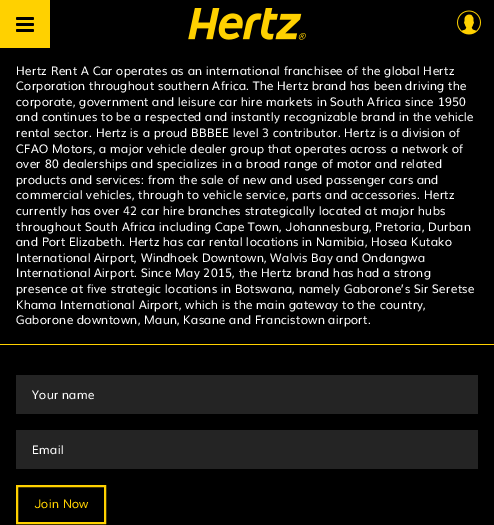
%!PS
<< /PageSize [494 525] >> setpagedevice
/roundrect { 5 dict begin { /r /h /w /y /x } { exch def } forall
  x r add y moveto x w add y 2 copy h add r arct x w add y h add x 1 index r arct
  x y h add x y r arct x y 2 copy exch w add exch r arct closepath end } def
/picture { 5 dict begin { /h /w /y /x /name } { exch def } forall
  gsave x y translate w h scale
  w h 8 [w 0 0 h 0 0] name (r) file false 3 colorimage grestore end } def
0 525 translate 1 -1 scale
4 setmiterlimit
0 setgray
0 0 494 525 rectfill
1 0.82 0 setrgbcolor
0 0 50 48 rectfill
0 setgray
16 23 18 3 1.5 roundrect fill
16 17 18 3 1.5 roundrect fill
16 29 18 3 1.5 roundrect fill
(img1.rgb) 188 8 118 32 picture
(img2.rgb) 457 10 24 25 picture
/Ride-Regular [12 0 0 -12 0 0] selectfont
1 setgray
16 75 moveto (Hertz Rent A Car operates as an international franchisee of the global Hertz) show
16 90 moveto (Corporation throughout southern Africa. The Hertz brand has been driving the) show
16 106 moveto (corporate, government and leisure car hire markets in South Africa since 1950) show
16 121 moveto (and continues to be a respected and instantly recognizable brand in the vehicle) show
16 137 moveto (rental sector. Hertz is a proud BBBEE level 3 contributor. Hertz is a division of) show
16 153 moveto (CFAO Motors, a major vehicle dealer group that operates across a network of) show
16 168 moveto (over 80 dealerships and specializes in a broad range of motor and related) show
16 184 moveto (products and services: from the sale of new and used passenger cars and) show
16 199 moveto (commercial vehicles, through to vehicle service, parts and accessories. Hertz) show
16 215 moveto (currently has over 42 car hire branches strategically located at major hubs) show
16 231 moveto (throughout South Africa including Cape Town, Johannesburg, Pretoria, Durban) show
16 246 moveto (and Port Elizabeth. Hertz has car rental locations in Namibia, Hosea Kutako) show
16 262 moveto (International Airport, Windhoek Downtown, Walvis Bay and Ondangwa) show
16 277 moveto (International Airport. Since May 2015, the Hertz brand has had a strong) show
16 293 moveto (presence at five strategic locations in Botswana, namely Gaborone’s Sir Seretse) show
16 309 moveto (Khama International Airport, which is the main gateway to the country,) show
16 324 moveto (Gaborone downtown, Maun, Kasane and Francistown airport.) show
1 0.82 0 setrgbcolor
0 344 494 1 rectfill
0.141 setgray
16 375 462 39 rectfill
1 setgray
32 399 moveto (Your name) show
0.141 setgray
16 430 462 39 rectfill
1 setgray
32 454 moveto (Email) show
1 0.82 0 setrgbcolor
2 setlinewidth
17 486 88 37 rectstroke
34 508 moveto (Join Now) show
showpage
